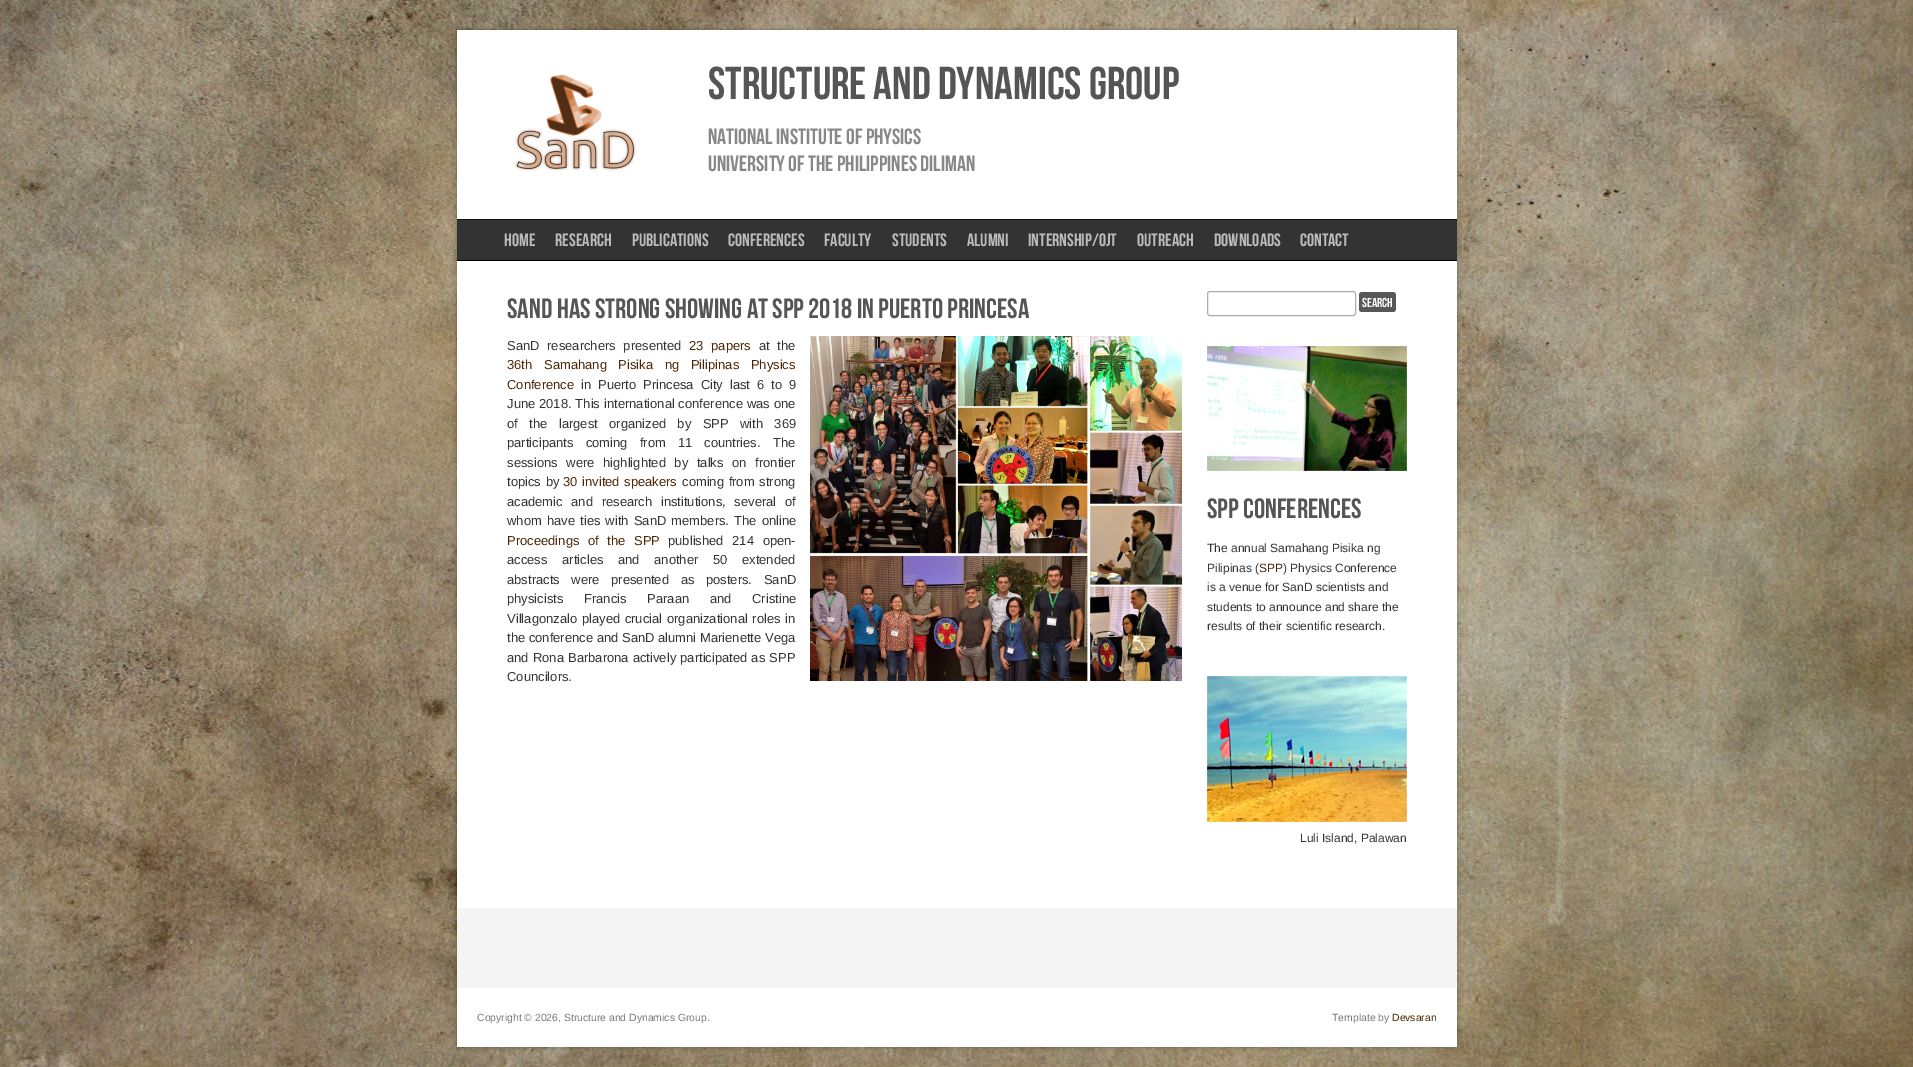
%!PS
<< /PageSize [1913 1067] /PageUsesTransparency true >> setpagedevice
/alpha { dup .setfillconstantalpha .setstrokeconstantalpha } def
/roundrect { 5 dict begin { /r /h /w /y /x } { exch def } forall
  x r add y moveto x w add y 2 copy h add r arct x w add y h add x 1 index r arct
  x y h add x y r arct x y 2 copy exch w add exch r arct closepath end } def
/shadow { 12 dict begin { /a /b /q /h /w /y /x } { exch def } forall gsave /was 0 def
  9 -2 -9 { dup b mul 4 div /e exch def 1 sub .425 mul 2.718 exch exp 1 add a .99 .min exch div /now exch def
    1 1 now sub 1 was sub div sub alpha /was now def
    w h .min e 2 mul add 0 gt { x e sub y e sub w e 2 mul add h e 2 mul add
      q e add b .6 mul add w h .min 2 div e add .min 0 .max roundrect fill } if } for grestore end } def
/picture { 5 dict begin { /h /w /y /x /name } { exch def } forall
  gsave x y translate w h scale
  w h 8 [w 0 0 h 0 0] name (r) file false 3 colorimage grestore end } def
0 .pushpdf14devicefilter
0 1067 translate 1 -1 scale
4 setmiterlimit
1 setgray
0 0 1913 1067 rectfill
(img1.rgb) 0 0 1913 1067 picture
0 setgray
457 30 1000 1017 0 2.5 0.3 shadow
1 setgray
457 30 1000 1017 rectfill
(img2.rgb) 515 74 122 97 picture
/BebasNeue-Regular [46 0 0 -46 0 0] selectfont
0.333 setgray
708 99 moveto (Structure and Dynamics Group) show
/BebasNeue-Regular [22 0 0 -22 0 0] selectfont
0.533 setgray
708 144 moveto (National Institute of Physics) show
708 171 moveto (University of the Philippines Diliman) show
0.2 setgray
457 220 1000 40 rectfill
0.067 setgray
457 219 1000 1 rectfill
0 setgray
457 260 1000 1 rectfill
/BebasNeue-Regular [18 0 0 -18 0 0] selectfont
0.733 setgray
504 246 moveto (HOME) show
555 246 moveto (RESEARCH) show
632 246 moveto (PUBLICATIONS) show
728 246 moveto (CONFERENCES) show
824 246 moveto (FACULTY) show
892 246 moveto (STUDENTS) show
967 246 moveto (ALUMNI) show
1028 246 moveto (INTERNSHIP/OJT) show
1137 246 moveto (OUTREACH) show
1214 246 moveto (DOWNLOADS) show
1300 246 moveto (CONTACT) show
/BebasNeue-Regular [28 0 0 -28 0 0] selectfont
0.333 setgray
507 318 moveto (SanD has strong showing at SPP 2018 in Puerto Princesa) show
/LiberationSans-Regular [13 0 0 -13 0 0] selectfont
0.2 setgray
507 350 moveto 4 0 32 (SanD researchers presented) widthshow
0.302 0.153 0.02 setrgbcolor
689 350 moveto 4 0 32 (23 papers) widthshow
0.2 setgray
759 350 moveto 4 0 32 (at the) widthshow
(img3.rgb) 810 336 372 345 picture
0.302 0.153 0.02 setrgbcolor
507 369 moveto 8 0 32 (36th Samahang Pisika ng Pilipinas Physics) widthshow
507 389 moveto (Conference) show
0.2 setgray
581 389 moveto 3.25 0 32 (in Puerto Princesa City last 6 to 9) widthshow
507 408 moveto 0.25 0 32 (June 2018. This international conference was one) widthshow
507 428 moveto 7.75 0 32 (of the largest organized by SPP with 369) widthshow
507 447 moveto 8.5 0 32 (participants coming from 11 countries. The) widthshow
507 467 moveto 5 0 32 (sessions were highlighted by talks on frontier) widthshow
507 486 moveto 1 0 32 (topics by) widthshow
0.302 0.153 0.02 setrgbcolor
563 486 moveto 1 0 32 (30 invited speakers) widthshow
0.2 setgray
682 486 moveto 1 0 32 (coming from strong) widthshow
507 506 moveto 5 0 32 (academic and research institutions, several of) widthshow
507 525 moveto 1.5 0 32 (whom have ties with SanD members. The online) widthshow
0.302 0.153 0.02 setrgbcolor
507 545 moveto 5 0 32 (Proceedings of the SPP) widthshow
0.2 setgray
668 545 moveto 5 0 32 (published 214 open-) widthshow
507 564 moveto 11 0 32 (access articles and another 50 extended) widthshow
507 584 moveto 8 0 32 (abstracts were presented as posters. SanD) widthshow
507 603 moveto 17 0 32 (physicists Francis Paraan and Cristine) widthshow
507 623 moveto 1 0 32 (Villagonzalo played crucial organizational roles in) widthshow
507 642 moveto (the conference and SanD alumni Marienette Vega) show
507 662 moveto 0.5 0 32 (and Rona Barbarona actively participated as SPP) widthshow
507 681 moveto (Councilors.) show
0.675 setgray
1207.5 291.5 148 24 2.5 roundrect stroke
0.341 setgray
1359 292 37 20 3 roundrect fill
/BebasNeue-Regular [13 0 0 -13 0 0] selectfont
1 setgray
1362 307 moveto (Search) show
(img4.rgb) 1207 346 200 125 picture
/BebasNeue-Regular [28 0 0 -28 0 0] selectfont
0.333 setgray
1207 518 moveto (SPP Conferences) show
/LiberationSans-Regular [12 0 0 -12 0 0] selectfont
0.2 setgray
1207 552 moveto (The annual Samahang Pisika ng) show
1207 572 moveto (Pilipinas \() show
0.302 0.153 0.02 setrgbcolor
1259 572 moveto (SPP) show
0.2 setgray
1283 572 moveto (\) Physics Conference) show
1207 591 moveto (is a venue for SanD scientists and) show
1207 611 moveto (students to announce and share the) show
1207 630 moveto (results of their scientific research.) show
(img5.rgb) 1207 676 200 146 picture
1300 842 moveto (Luli Island, Palawan) show
0.957 setgray
457 908 1000 80 rectfill
/LiberationSans-Regular [10.4 0 0 -10.4 0 0] selectfont
0.467 setgray
477 1021 moveto (Copyright © 2026, Structure and Dynamics Group.) show
1332 1021 moveto (Template by) show
0.302 0.153 0.02 setrgbcolor
1392 1021 moveto (Devsaran) show
.poppdf14devicefilter showpage
